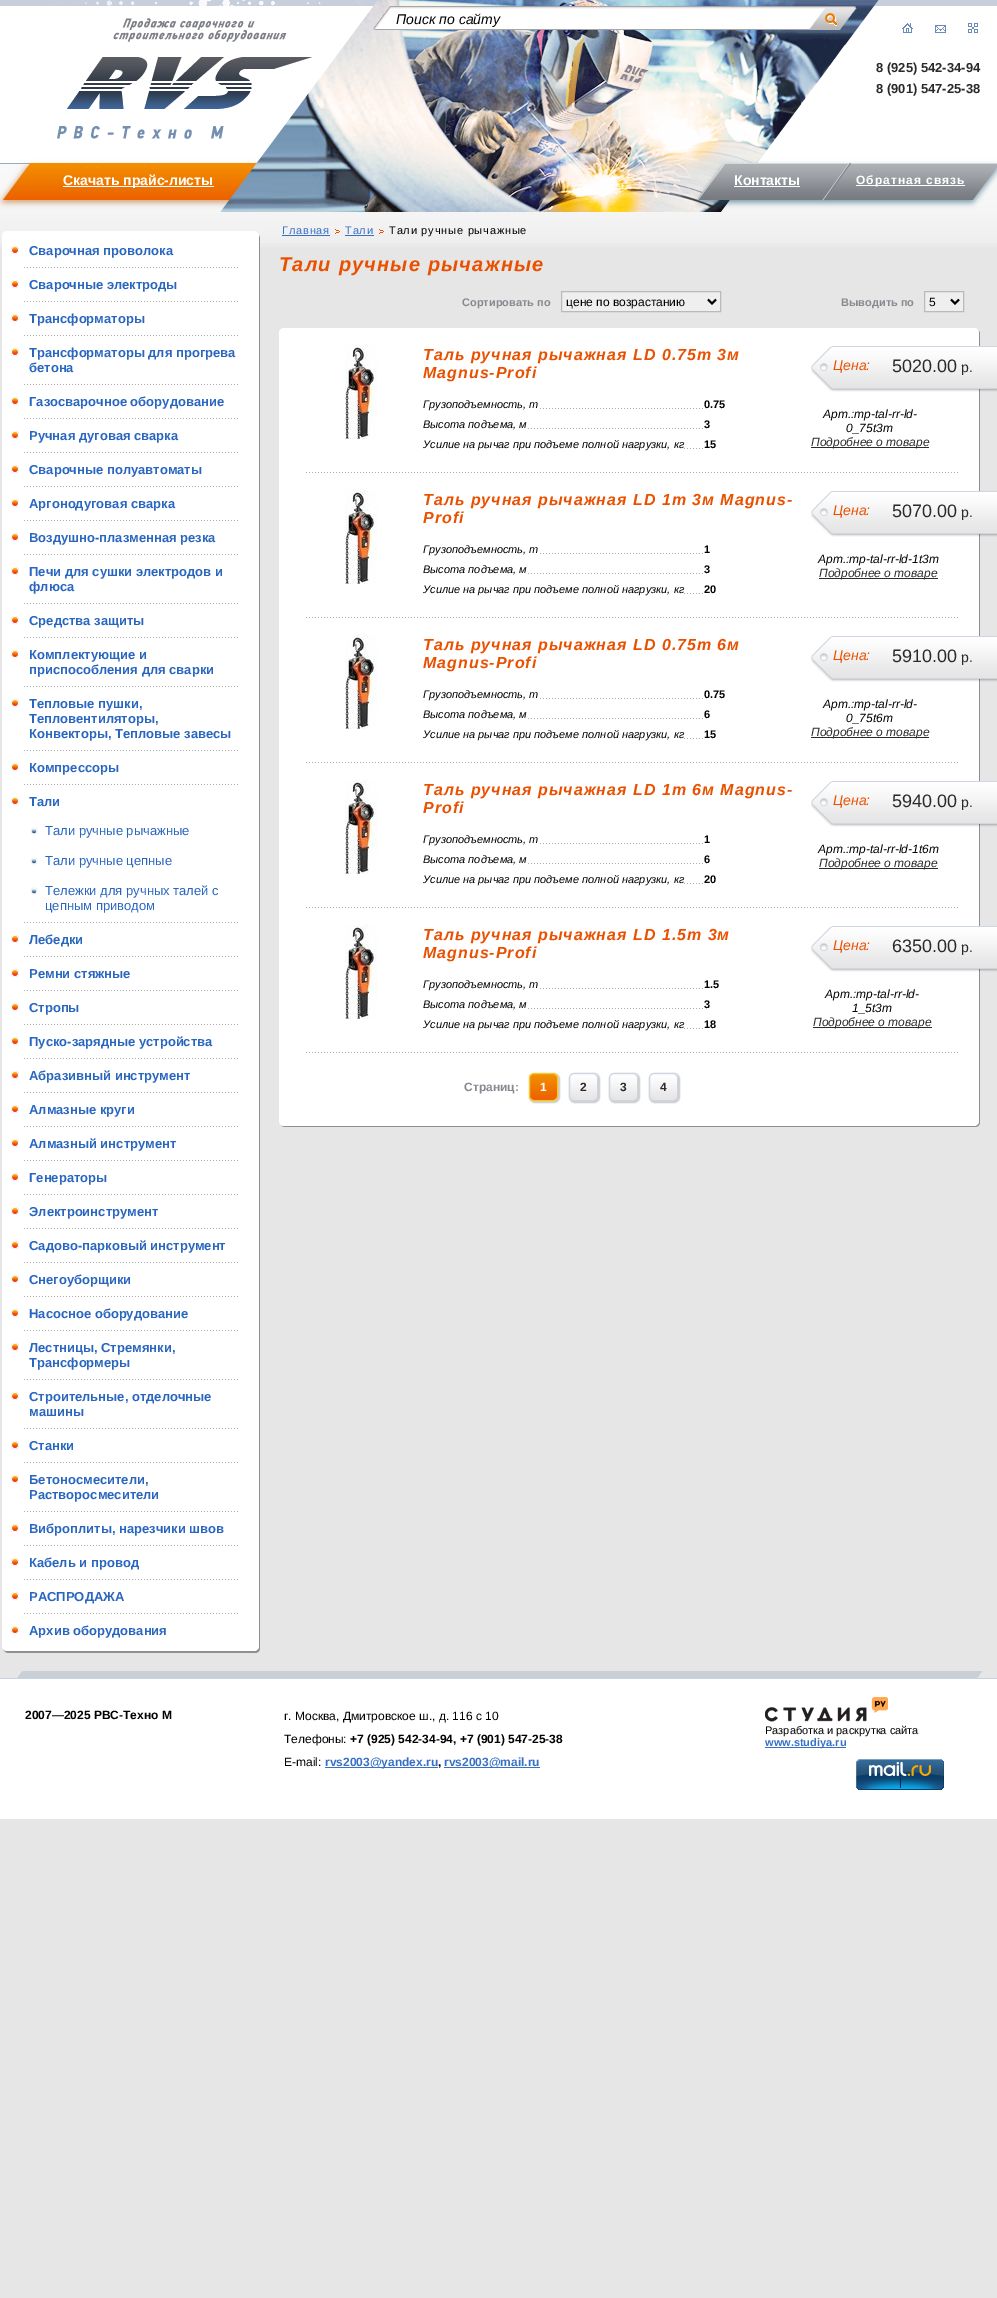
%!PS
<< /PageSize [997 2298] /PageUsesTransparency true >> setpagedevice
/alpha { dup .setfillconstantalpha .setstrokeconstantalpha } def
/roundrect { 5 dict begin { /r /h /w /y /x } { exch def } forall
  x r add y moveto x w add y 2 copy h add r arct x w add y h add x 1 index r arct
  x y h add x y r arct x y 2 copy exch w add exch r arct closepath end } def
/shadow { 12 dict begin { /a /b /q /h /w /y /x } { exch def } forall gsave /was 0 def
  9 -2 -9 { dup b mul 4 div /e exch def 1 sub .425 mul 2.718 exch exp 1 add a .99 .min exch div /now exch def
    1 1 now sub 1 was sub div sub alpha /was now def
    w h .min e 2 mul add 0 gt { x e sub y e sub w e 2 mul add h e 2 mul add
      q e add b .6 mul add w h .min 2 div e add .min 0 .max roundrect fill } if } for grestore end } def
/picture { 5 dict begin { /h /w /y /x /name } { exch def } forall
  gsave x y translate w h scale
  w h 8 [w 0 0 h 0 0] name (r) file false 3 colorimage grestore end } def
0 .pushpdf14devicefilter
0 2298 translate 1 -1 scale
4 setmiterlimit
0.902 setgray
0 0 997 2298 rectfill
(img1.rgb) 0 6 997 237 picture
0.784 0.812 0.863 setrgbcolor
0 0 997 6 rectfill
(img2.rgb) 0 0 997 247 picture
(img3.rgb) 50 0 528 199 picture
(img4.rgb) 57 18 255 121 picture
(img5.rgb) 373 6 484 24 picture
/LiberationSans-Italic [14 0 0 -14 0 0] selectfont
0 setgray
396 24 moveto (Поиск по сайту) show
(img6.rgb) 902 23 11 10 picture
(img7.rgb) 935 25 11 8 picture
(img8.rgb) 968 23 10 10 picture
/LiberationSans-Bold [13 0 0 -13 0 0] selectfont
0.165 setgray
876 72 moveto (8 \(925\) 542-34-94) show
876 93 moveto (8 \(901\) 547-25-38) show
1 setgray
63 186 151 1 rectfill
/LiberationSans-Bold [14 0 0 -14 0 0] selectfont
63 185 moveto (Скачать прайс-листы) show
734 185 moveto (Контакты) show
734 186 66 1 rectfill
856 185 109 1 rectfill
/LiberationSans-Bold [12 0 0 -12 0 0] selectfont
856 184 moveto 1 0 (Обратная связь) ashow
0.561 setgray
newpath 3 1649 moveto 4 1651 6 1653 8 1653 curveto 255 1653 lineto 258 1653 260 1651 260 1648 curveto 260 238 lineto 259 235 lineto 259 1646 lineto 259 1649 257 1651 254 1651 curveto 7 1651 lineto 5 1651 4 1650 3 1649 curveto closepath fill
1 setgray
2 231 257 1420 5 roundrect fill
(img9.rgb) 24 267 214 1 picture
(img10.rgb) 11 246 8 8 picture
/LiberationSans-Bold [13 0 0 -13 0 0] selectfont
0.161 0.4 0.753 setrgbcolor
29 255 moveto (Сварочная проволока) show
(img9.rgb) 24 301 214 1 picture
(img10.rgb) 11 280 8 8 picture
29 289 moveto (Сварочные электроды) show
(img9.rgb) 24 335 214 1 picture
(img10.rgb) 11 314 8 8 picture
29 323 moveto (Трансформаторы) show
(img9.rgb) 24 384 214 1 picture
(img10.rgb) 11 348 8 8 picture
29 357 moveto (Трансформаторы для прогрева) show
29 372 moveto (бетона) show
(img9.rgb) 24 418 214 1 picture
(img10.rgb) 11 397 8 8 picture
29 406 moveto (Газосварочное оборудование) show
(img9.rgb) 24 452 214 1 picture
(img10.rgb) 11 431 8 8 picture
29 440 moveto (Ручная дуговая сварка) show
(img9.rgb) 24 486 214 1 picture
(img10.rgb) 11 465 8 8 picture
29 474 moveto (Сварочные полуавтоматы) show
(img9.rgb) 24 520 214 1 picture
(img10.rgb) 11 499 8 8 picture
29 508 moveto (Аргонодуговая сварка) show
(img9.rgb) 24 554 214 1 picture
(img10.rgb) 11 533 8 8 picture
29 542 moveto (Воздушно-плазменная резка) show
(img9.rgb) 24 603 214 1 picture
(img10.rgb) 11 567 8 8 picture
29 576 moveto (Печи для сушки электродов и) show
29 591 moveto (флюса) show
(img9.rgb) 24 637 214 1 picture
(img10.rgb) 11 616 8 8 picture
29 625 moveto (Средства защиты) show
(img9.rgb) 24 686 214 1 picture
(img10.rgb) 11 650 8 8 picture
29 659 moveto (Комплектующие и) show
29 674 moveto (приспособления для сварки) show
(img9.rgb) 24 750 214 1 picture
(img10.rgb) 11 699 8 8 picture
29 708 moveto (Тепловые пушки,) show
29 723 moveto (Тепловентиляторы,) show
29 738 moveto (Конвекторы, Тепловые завесы) show
(img9.rgb) 24 784 214 1 picture
(img10.rgb) 11 763 8 8 picture
29 772 moveto (Компрессоры) show
(img9.rgb) 24 922 214 1 picture
(img10.rgb) 11 797 8 8 picture
29 806 moveto (Тали) show
(img11.rgb) 30 827 8 8 picture
/LiberationSans-Regular [13 0 0 -13 0 0] selectfont
45 835 moveto (Тали ручные рычажные) show
(img11.rgb) 30 857 8 8 picture
45 865 moveto (Тали ручные цепные) show
(img11.rgb) 30 887 8 8 picture
45 895 moveto (Тележки для ручных талей с) show
45 910 moveto (цепным приводом) show
(img9.rgb) 24 956 214 1 picture
(img10.rgb) 11 935 8 8 picture
/LiberationSans-Bold [13 0 0 -13 0 0] selectfont
29 944 moveto (Лебедки) show
(img9.rgb) 24 990 214 1 picture
(img10.rgb) 11 969 8 8 picture
29 978 moveto (Ремни стяжные) show
(img9.rgb) 24 1024 214 1 picture
(img10.rgb) 11 1003 8 8 picture
29 1012 moveto (Стропы) show
(img9.rgb) 24 1058 214 1 picture
(img10.rgb) 11 1037 8 8 picture
29 1046 moveto (Пуско-зарядные устройства) show
(img9.rgb) 24 1092 214 1 picture
(img10.rgb) 11 1071 8 8 picture
29 1080 moveto (Абразивный инструмент) show
(img9.rgb) 24 1126 214 1 picture
(img10.rgb) 11 1105 8 8 picture
29 1114 moveto (Алмазные круги) show
(img9.rgb) 24 1160 214 1 picture
(img10.rgb) 11 1139 8 8 picture
29 1148 moveto (Алмазный инструмент) show
(img9.rgb) 24 1194 214 1 picture
(img10.rgb) 11 1173 8 8 picture
29 1182 moveto (Генераторы) show
(img9.rgb) 24 1228 214 1 picture
(img10.rgb) 11 1207 8 8 picture
29 1216 moveto (Электроинструмент) show
(img9.rgb) 24 1262 214 1 picture
(img10.rgb) 11 1241 8 8 picture
29 1250 moveto (Садово-парковый инструмент) show
(img9.rgb) 24 1296 214 1 picture
(img10.rgb) 11 1275 8 8 picture
29 1284 moveto (Снегоуборщики) show
(img9.rgb) 24 1330 214 1 picture
(img10.rgb) 11 1309 8 8 picture
29 1318 moveto (Насосное оборудование) show
(img9.rgb) 24 1379 214 1 picture
(img10.rgb) 11 1343 8 8 picture
29 1352 moveto (Лестницы, Стремянки,) show
29 1367 moveto (Трансформеры) show
(img9.rgb) 24 1428 214 1 picture
(img10.rgb) 11 1392 8 8 picture
29 1401 moveto (Строительные, отделочные) show
29 1416 moveto (машины) show
(img9.rgb) 24 1462 214 1 picture
(img10.rgb) 11 1441 8 8 picture
29 1450 moveto (Станки) show
(img9.rgb) 24 1511 214 1 picture
(img10.rgb) 11 1475 8 8 picture
29 1484 moveto (Бетоносмесители,) show
29 1499 moveto (Растворосмесители) show
(img9.rgb) 24 1545 214 1 picture
(img10.rgb) 11 1524 8 8 picture
29 1533 moveto (Виброплиты, нарезчики швов) show
(img9.rgb) 24 1579 214 1 picture
(img10.rgb) 11 1558 8 8 picture
29 1567 moveto (Кабель и провод) show
(img9.rgb) 24 1613 214 1 picture
(img10.rgb) 11 1592 8 8 picture
29 1601 moveto (РАСПРОДАЖА) show
(img10.rgb) 11 1626 8 8 picture
29 1635 moveto (Архив оборудования) show
(img12.rgb) 335 229 5 5 picture
/LiberationSans-Regular [11 0 0 -11 0 0] selectfont
0.216 0.439 0.769 setrgbcolor
282 234 moveto 0.8 0 (Главная) ashow
282 235 48 1 rectfill
(img12.rgb) 379 229 5 5 picture
345 234 moveto 0.8 0 (Тали) ashow
345 235 29 1 rectfill
0 setgray
389 234 moveto 0.8 0 (Тали ручные рычажные) ashow
/LiberationSans-BoldItalic [20 0 0 -20 0 0] selectfont
0.914 0.314 0 setrgbcolor
279 271 moveto 1.2 0 (Тали ручные рычажные) ashow
/LiberationSans-Bold [11 0 0 -11 0 0] selectfont
0.525 0.537 0.561 setrgbcolor
462 306 moveto (Сортировать по) show
0.937 setgray
newpath 561.5 291.5 moveto 720.5 291.5 lineto 720.5 311.5 lineto 561.5 311.5 lineto closepath gsave fill grestore
0.725 0.729 0.741 setrgbcolor
stroke
0 setgray
2 setlinewidth
newpath 708 299.5 moveto 712 303.5 lineto 716 299.5 lineto stroke
/LiberationSans-Regular [12 0 0 -12 0 0] selectfont
566 306 moveto (цене по возрастанию) show
/LiberationSans-Bold [11 0 0 -11 0 0] selectfont
0.525 0.537 0.561 setrgbcolor
841 306 moveto (Выводить по) show
0.937 setgray
newpath 924.5 291.5 moveto 963.5 291.5 lineto 963.5 311.5 lineto 924.5 311.5 lineto closepath gsave fill grestore
0.725 0.729 0.741 setrgbcolor
1 setlinewidth
stroke
0 setgray
2 setlinewidth
newpath 951 299.5 moveto 955 303.5 lineto 959 299.5 lineto stroke
/LiberationSans-Regular [12 0 0 -12 0 0] selectfont
929 306 moveto (5) show
0.561 setgray
newpath 281 1125 moveto 282 1126 283 1127 285 1127 curveto 975 1127 lineto 978 1127 980 1125 980 1122 curveto 980 334 lineto 980 332 979 331 978 330 curveto 979 331 979 332 979 333 curveto 979 1121 lineto 979 1124 977 1126 974 1126 curveto 284 1126 lineto 283 1126 282 1126 281 1125 curveto closepath fill
1 setgray
279 328 700 798 5 roundrect fill
(img13.rgb) 306 472 652 1 picture
(img14.rgb) 345 344 32 95 picture
/LiberationSans-BoldItalic [16 0 0 -16 0 0] selectfont
0.914 0.314 0 setrgbcolor
423 360 moveto 1 0 (Таль ручная рычажная LD 0.75т 3м) ashow
423 378 moveto 1 0 (Magnus-Profi) ashow
(img15.rgb) 540 408 163 1 picture
/LiberationSans-Italic [11 0 0 -11 0 0] selectfont
0 setgray
423 408 moveto (Грузоподъемность, т) show
/LiberationSans-Bold [11 0 0 -11 0 0] selectfont
704 408 moveto (0.75) show
(img16.rgb) 528 428 175 1 picture
/LiberationSans-Italic [11 0 0 -11 0 0] selectfont
423 428 moveto (Высота подъема, м) show
/LiberationSans-Bold [11 0 0 -11 0 0] selectfont
704 428 moveto (3) show
(img17.rgb) 684 448 19 1 picture
/LiberationSans-Italic [11 0 0 -11 0 0] selectfont
423 448 moveto (Усилие на рычаг при подъеме полной нагрузки, кг) show
/LiberationSans-Bold [11 0 0 -11 0 0] selectfont
704 448 moveto (15) show
(img18.rgb) 811 346 186 46 picture
/LiberationSans-Italic [14 0 0 -14 0 0] selectfont
0.914 0.314 0 setrgbcolor
833 370 moveto (Цена:) show
/LiberationSans-Regular [18 0 0 -18 0 0] selectfont
0.165 setgray
892 372 moveto (5020.00) show
/LiberationSans-Regular [14 0 0 -14 0 0] selectfont
961 372 moveto (р.) show
/LiberationSans-Italic [12 0 0 -12 0 0] selectfont
0 setgray
823 418 moveto (Арт.:mp-tal-rr-ld-) show
846 432 moveto (0_75t3m) show
0.165 setgray
811 447 118 1 rectfill
811 446 moveto (Подробнее о товаре) show
(img13.rgb) 306 617 652 1 picture
(img14.rgb) 345 489 32 95 picture
/LiberationSans-BoldItalic [16 0 0 -16 0 0] selectfont
0.914 0.314 0 setrgbcolor
423 505 moveto 1 0 (Таль ручная рычажная LD 1т 3м Magnus-) ashow
423 523 moveto 1 0 (Profi) ashow
(img15.rgb) 540 553 163 1 picture
/LiberationSans-Italic [11 0 0 -11 0 0] selectfont
0 setgray
423 553 moveto (Грузоподъемность, т) show
/LiberationSans-Bold [11 0 0 -11 0 0] selectfont
704 553 moveto (1) show
(img16.rgb) 528 573 175 1 picture
/LiberationSans-Italic [11 0 0 -11 0 0] selectfont
423 573 moveto (Высота подъема, м) show
/LiberationSans-Bold [11 0 0 -11 0 0] selectfont
704 573 moveto (3) show
(img17.rgb) 684 593 19 1 picture
/LiberationSans-Italic [11 0 0 -11 0 0] selectfont
423 593 moveto (Усилие на рычаг при подъеме полной нагрузки, кг) show
/LiberationSans-Bold [11 0 0 -11 0 0] selectfont
704 593 moveto (20) show
(img18.rgb) 811 491 186 46 picture
/LiberationSans-Italic [14 0 0 -14 0 0] selectfont
0.914 0.314 0 setrgbcolor
833 515 moveto (Цена:) show
/LiberationSans-Regular [18 0 0 -18 0 0] selectfont
0.165 setgray
892 517 moveto (5070.00) show
/LiberationSans-Regular [14 0 0 -14 0 0] selectfont
961 517 moveto (р.) show
/LiberationSans-Italic [12 0 0 -12 0 0] selectfont
0 setgray
818 563 moveto (Арт.:mp-tal-rr-ld-1t3m) show
0.165 setgray
819 578 119 1 rectfill
819 577 moveto (Подробнее о товаре) show
(img13.rgb) 306 762 652 1 picture
(img14.rgb) 345 634 32 95 picture
/LiberationSans-BoldItalic [16 0 0 -16 0 0] selectfont
0.914 0.314 0 setrgbcolor
423 650 moveto 1 0 (Таль ручная рычажная LD 0.75т 6м) ashow
423 668 moveto 1 0 (Magnus-Profi) ashow
(img15.rgb) 540 698 163 1 picture
/LiberationSans-Italic [11 0 0 -11 0 0] selectfont
0 setgray
423 698 moveto (Грузоподъемность, т) show
/LiberationSans-Bold [11 0 0 -11 0 0] selectfont
704 698 moveto (0.75) show
(img16.rgb) 528 718 175 1 picture
/LiberationSans-Italic [11 0 0 -11 0 0] selectfont
423 718 moveto (Высота подъема, м) show
/LiberationSans-Bold [11 0 0 -11 0 0] selectfont
704 718 moveto (6) show
(img17.rgb) 684 738 19 1 picture
/LiberationSans-Italic [11 0 0 -11 0 0] selectfont
423 738 moveto (Усилие на рычаг при подъеме полной нагрузки, кг) show
/LiberationSans-Bold [11 0 0 -11 0 0] selectfont
704 738 moveto (15) show
(img18.rgb) 811 636 186 46 picture
/LiberationSans-Italic [14 0 0 -14 0 0] selectfont
0.914 0.314 0 setrgbcolor
833 660 moveto (Цена:) show
/LiberationSans-Regular [18 0 0 -18 0 0] selectfont
0.165 setgray
892 662 moveto (5910.00) show
/LiberationSans-Regular [14 0 0 -14 0 0] selectfont
961 662 moveto (р.) show
/LiberationSans-Italic [12 0 0 -12 0 0] selectfont
0 setgray
823 708 moveto (Арт.:mp-tal-rr-ld-) show
846 722 moveto (0_75t6m) show
0.165 setgray
811 737 118 1 rectfill
811 736 moveto (Подробнее о товаре) show
(img13.rgb) 306 907 652 1 picture
(img14.rgb) 345 779 32 95 picture
/LiberationSans-BoldItalic [16 0 0 -16 0 0] selectfont
0.914 0.314 0 setrgbcolor
423 795 moveto 1 0 (Таль ручная рычажная LD 1т 6м Magnus-) ashow
423 813 moveto 1 0 (Profi) ashow
(img15.rgb) 540 843 163 1 picture
/LiberationSans-Italic [11 0 0 -11 0 0] selectfont
0 setgray
423 843 moveto (Грузоподъемность, т) show
/LiberationSans-Bold [11 0 0 -11 0 0] selectfont
704 843 moveto (1) show
(img16.rgb) 528 863 175 1 picture
/LiberationSans-Italic [11 0 0 -11 0 0] selectfont
423 863 moveto (Высота подъема, м) show
/LiberationSans-Bold [11 0 0 -11 0 0] selectfont
704 863 moveto (6) show
(img17.rgb) 684 883 19 1 picture
/LiberationSans-Italic [11 0 0 -11 0 0] selectfont
423 883 moveto (Усилие на рычаг при подъеме полной нагрузки, кг) show
/LiberationSans-Bold [11 0 0 -11 0 0] selectfont
704 883 moveto (20) show
(img18.rgb) 811 781 186 46 picture
/LiberationSans-Italic [14 0 0 -14 0 0] selectfont
0.914 0.314 0 setrgbcolor
833 805 moveto (Цена:) show
/LiberationSans-Regular [18 0 0 -18 0 0] selectfont
0.165 setgray
892 807 moveto (5940.00) show
/LiberationSans-Regular [14 0 0 -14 0 0] selectfont
961 807 moveto (р.) show
/LiberationSans-Italic [12 0 0 -12 0 0] selectfont
0 setgray
818 853 moveto (Арт.:mp-tal-rr-ld-1t6m) show
0.165 setgray
819 868 119 1 rectfill
819 867 moveto (Подробнее о товаре) show
(img13.rgb) 306 1052 652 1 picture
(img14.rgb) 345 924 32 95 picture
/LiberationSans-BoldItalic [16 0 0 -16 0 0] selectfont
0.914 0.314 0 setrgbcolor
423 940 moveto 1 0 (Таль ручная рычажная LD 1.5т 3м) ashow
423 958 moveto 1 0 (Magnus-Profi) ashow
(img15.rgb) 540 988 163 1 picture
/LiberationSans-Italic [11 0 0 -11 0 0] selectfont
0 setgray
423 988 moveto (Грузоподъемность, т) show
/LiberationSans-Bold [11 0 0 -11 0 0] selectfont
704 988 moveto (1.5) show
(img16.rgb) 528 1008 175 1 picture
/LiberationSans-Italic [11 0 0 -11 0 0] selectfont
423 1008 moveto (Высота подъема, м) show
/LiberationSans-Bold [11 0 0 -11 0 0] selectfont
704 1008 moveto (3) show
(img17.rgb) 684 1028 19 1 picture
/LiberationSans-Italic [11 0 0 -11 0 0] selectfont
423 1028 moveto (Усилие на рычаг при подъеме полной нагрузки, кг) show
/LiberationSans-Bold [11 0 0 -11 0 0] selectfont
704 1028 moveto (18) show
(img18.rgb) 811 926 186 46 picture
/LiberationSans-Italic [14 0 0 -14 0 0] selectfont
0.914 0.314 0 setrgbcolor
833 950 moveto (Цена:) show
/LiberationSans-Regular [18 0 0 -18 0 0] selectfont
0.165 setgray
892 952 moveto (6350.00) show
/LiberationSans-Regular [14 0 0 -14 0 0] selectfont
961 952 moveto (р.) show
/LiberationSans-Italic [12 0 0 -12 0 0] selectfont
0 setgray
825 998 moveto (Арт.:mp-tal-rr-ld-) show
852 1012 moveto (1_5t3m) show
0.165 setgray
813 1027 119 1 rectfill
813 1026 moveto (Подробнее о товаре) show
/LiberationSans-Bold [12 0 0 -12 0 0] selectfont
0.525 0.537 0.561 setrgbcolor
464 1091 moveto (Страниц:) show
0.8 setgray
529 1073 31 30 6 0.5 1 shadow
(img19.rgb) 529 1074 29 26 picture
0.988 0.788 0.118 setrgbcolor
1 setlinewidth
529.5 1073.5 28 27 4.5 roundrect stroke
1 setgray
540 1091 moveto (1) show
0.8 setgray
569 1073 31 30 6 0.5 1 shadow
(img20.rgb) 569 1074 29 26 picture
0.808 0.839 0.886 setrgbcolor
569.5 1073.5 28 27 4.5 roundrect stroke
0.165 setgray
580 1091 moveto (2) show
0.8 setgray
609 1073 31 30 6 0.5 1 shadow
(img20.rgb) 609 1074 29 26 picture
0.808 0.839 0.886 setrgbcolor
609.5 1073.5 28 27 4.5 roundrect stroke
0.165 setgray
620 1091 moveto (3) show
0.8 setgray
649 1073 31 30 6 0.5 1 shadow
(img20.rgb) 649 1074 29 26 picture
0.808 0.839 0.886 setrgbcolor
649.5 1073.5 28 27 4.5 roundrect stroke
0.165 setgray
660 1091 moveto (4) show
(img21.rgb) 17 1671 966 7 picture
1 setgray
0 1679 997 140 rectfill
0.788 0.827 0.875 setrgbcolor
0 1678 997 1 rectfill
0 setgray
25 1719 moveto (2007—2025 РВС-Техно М) show
/LiberationSans-Regular [12 0 0 -12 0 0] selectfont
284 1720 moveto (г. Москва, Дмитровское ш., д. 116 с 10) show
284 1743 moveto (Телефоны:) show
/LiberationSans-Bold [12 0 0 -12 0 0] selectfont
350 1743 moveto (+7 \(925\) 542-34-94, +7 \(901\) 547-25-38) show
/LiberationSans-Regular [12 0 0 -12 0 0] selectfont
284 1766 moveto (E-mail:) show
0.216 0.439 0.769 setrgbcolor
325 1767 113 1 rectfill
/LiberationSans-Bold [12 0 0 -12 0 0] selectfont
325 1766 moveto (rvs2003@yandex.ru) show
0 setgray
438 1766 moveto (,) show
0.216 0.439 0.769 setrgbcolor
444 1767 96 1 rectfill
444 1766 moveto (rvs2003@mail.ru) show
(img22.rgb) 765 1697 123 25 picture
/LiberationSans-Regular [11 0 0 -11 0 0] selectfont
0 setgray
765 1734 moveto (Разработка и раскрутка сайта) show
0.216 0.439 0.769 setrgbcolor
765 1747 81 1 rectfill
/LiberationSans-Bold [11 0 0 -11 0 0] selectfont
765 1746 moveto (www.studiya.ru) show
(img23.rgb) 856 1759 88 31 picture
.poppdf14devicefilter showpage
